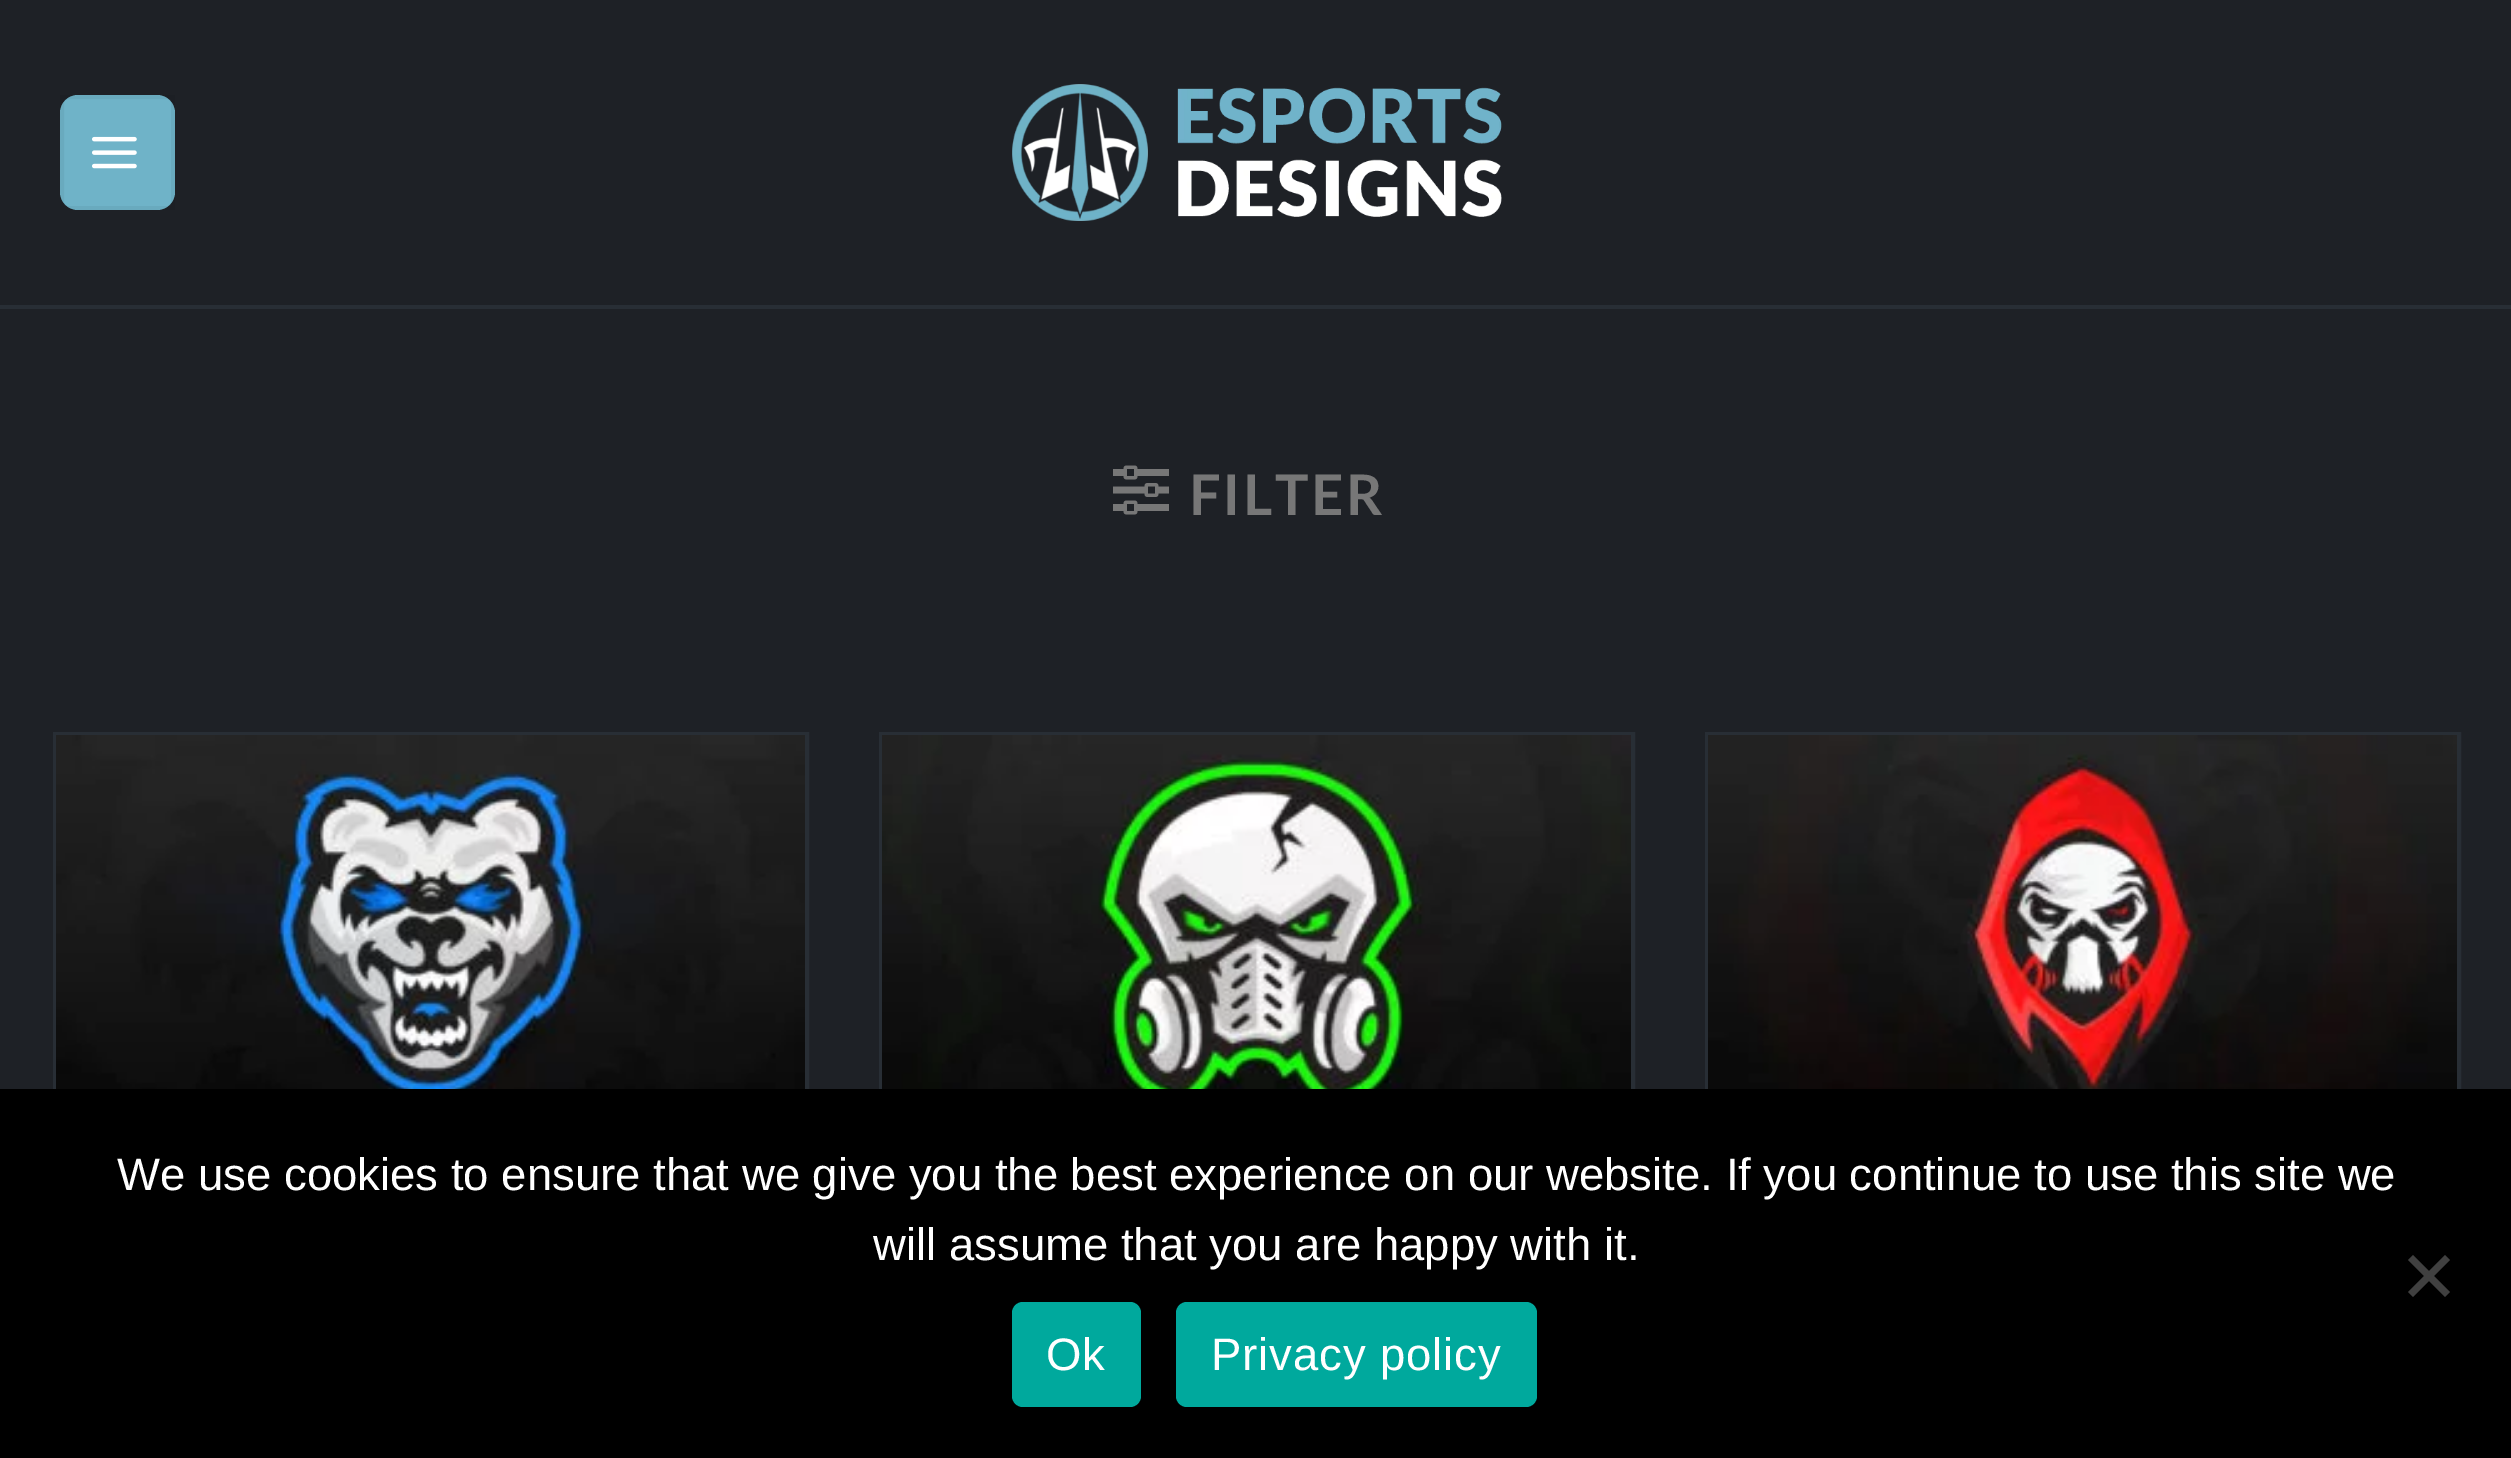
%!PS
<< /PageSize [2511 1458] /PageUsesTransparency true >> setpagedevice
/alpha { dup .setfillconstantalpha .setstrokeconstantalpha } def
/roundrect { 5 dict begin { /r /h /w /y /x } { exch def } forall
  x r add y moveto x w add y 2 copy h add r arct x w add y h add x 1 index r arct
  x y h add x y r arct x y 2 copy exch w add exch r arct closepath end } def
/picture { 5 dict begin { /h /w /y /x /name } { exch def } forall
  gsave x y translate w h scale
  w h 8 [w 0 0 h 0 0] name (r) file false 3 colorimage grestore end } def
0 .pushpdf14devicefilter
0 1458 translate 1 -1 scale
4 setmiterlimit
0.118 0.129 0.149 setrgbcolor
0 0 2511 1458 rectfill
0.157 0.18 0.208 setrgbcolor
0 305 2511 4 rectfill
0.435 0.702 0.784 setrgbcolor
60 95 115 115 18 roundrect fill
0.05 alpha
0 setgray
4 setlinewidth
62 97 111 111 rectstroke
1 alpha
(img1.rgb) 92 136 45 33 picture
(img2.rgb) 1012 84 490 137 picture
(img3.rgb) 1113 465 56 50 picture
/Lato-Bold [56 0 0 -56 0 0] selectfont
0.467 setgray
1189 515 moveto 2.75 0 (FILTER) ashow
0.157 0.18 0.208 setrgbcolor
55 734 752 671 rectstroke
(img4.rgb) 56 735 749 354 picture
881 734 752 671 rectstroke
(img5.rgb) 882 735 749 354 picture
1707 734 752 671 rectstroke
(img6.rgb) 1708 735 749 354 picture
0 setgray
0 1089 2511 369 rectfill
/LiberationSans-Regular [45.5 0 0 -45.5 0 0] selectfont
1 setgray
117 1190 moveto (We use cookies to ensure that we give you the best experience on our website. If you continue to use this site we) show
873 1260 moveto (will assume that you are happy with it.) show
0.251 setgray
newpath 2445 1255 moveto 2450 1260 lineto 2413 1297 lineto 2408 1292 lineto closepath fill
newpath 2408 1260 moveto 2413 1255 lineto 2450 1292 lineto 2445 1297 lineto closepath fill
0 0.663 0.616 setrgbcolor
1012 1302 129 105 11 roundrect fill
1 setgray
1046 1370 moveto 0.9 0 (Ok) ashow
0 0.663 0.616 setrgbcolor
1176 1302 361 105 11 roundrect fill
1 setgray
1211 1370 moveto 0.9 0 (Privacy policy) ashow
.poppdf14devicefilter showpage
